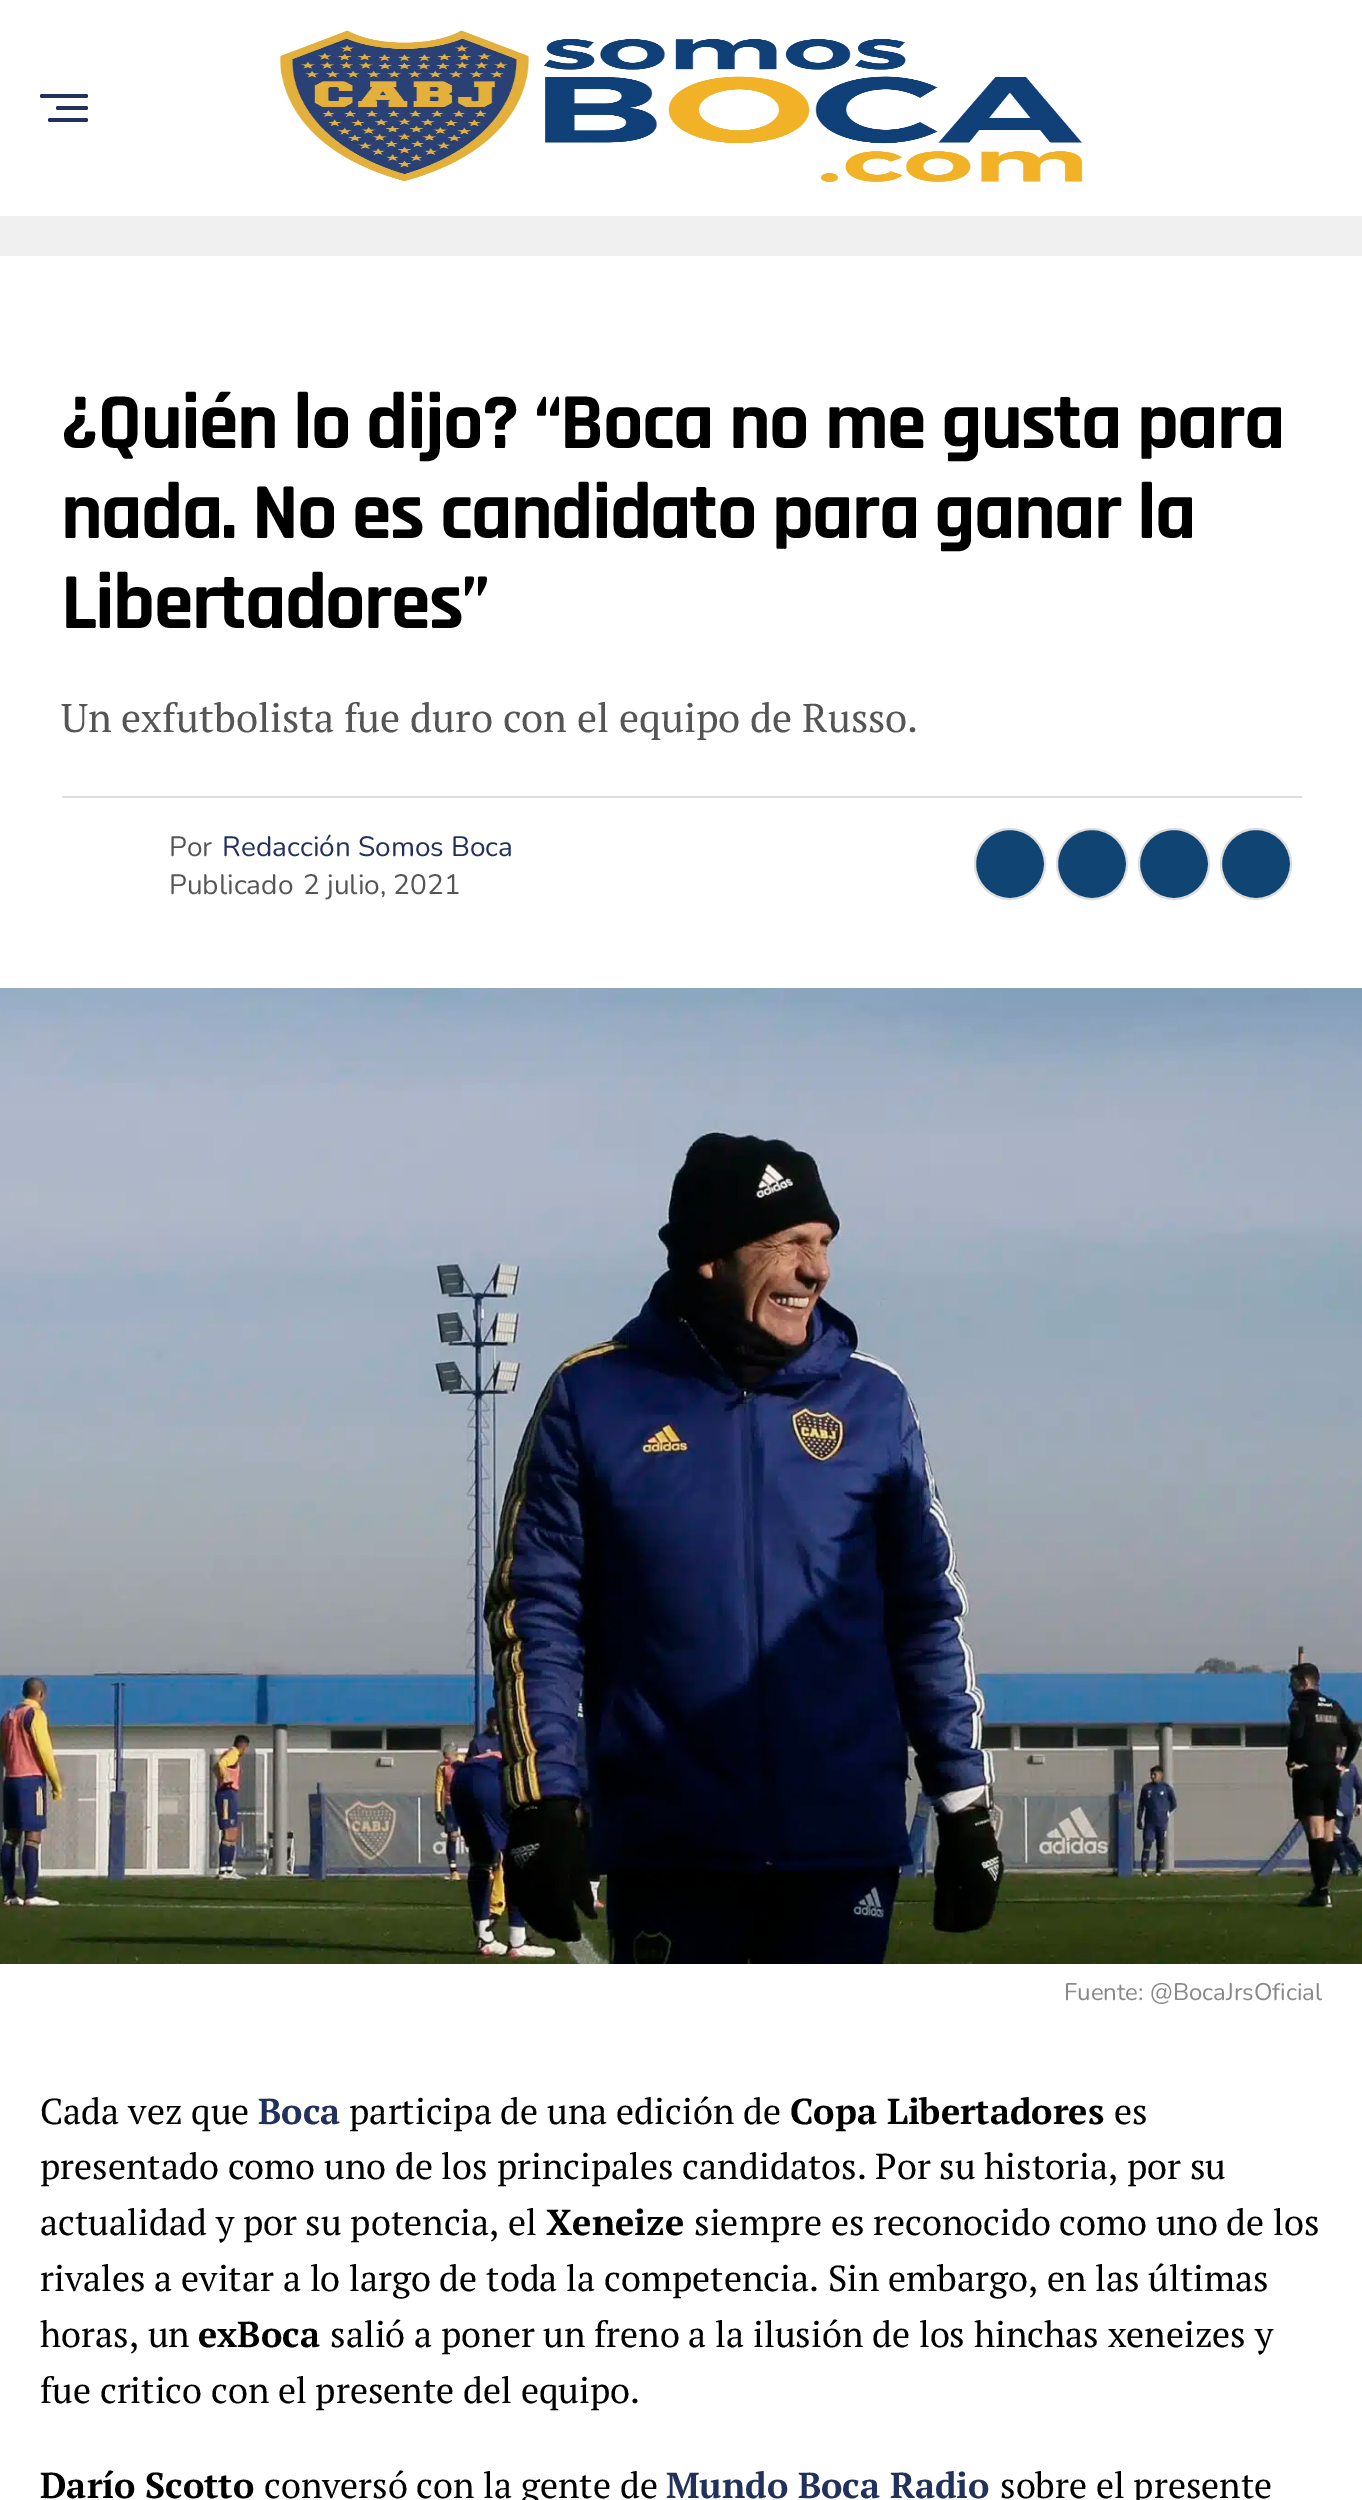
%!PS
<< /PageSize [1362 2500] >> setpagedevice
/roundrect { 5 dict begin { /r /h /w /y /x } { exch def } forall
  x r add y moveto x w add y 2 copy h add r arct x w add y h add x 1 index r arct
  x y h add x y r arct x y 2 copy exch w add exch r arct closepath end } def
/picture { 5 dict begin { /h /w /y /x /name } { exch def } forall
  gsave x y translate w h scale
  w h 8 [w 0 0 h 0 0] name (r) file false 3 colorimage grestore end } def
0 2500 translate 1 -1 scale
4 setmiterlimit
0.941 setgray
0 0 1362 2500 rectfill
1 setgray
0 0 1362 216 rectfill
0.129 0.192 0.357 setrgbcolor
40 94 48 4 2 roundrect fill
56 106 32 4 2 roundrect fill
48 118 40 4 2 roundrect fill
(img1.rgb) 279 30 804 152 picture
1 setgray
0 256 1362 2244 rectfill
/Rajdhani-Bold [80 0 0 -80 0 0] selectfont
0 setgray
61 448 moveto -1.6 0 (¿Quién lo dijo? “Boca no me gusta para) ashow
61 538 moveto -1.6 0 (nada. No es candidato para ganar la) ashow
61 628 moveto -1.6 0 (Libertadores”) ashow
/PTSerif-Regular [40 0 0 -40 0 0] selectfont
0.333 setgray
61 732 moveto (Un exfutbolista fue duro con el equipo de Russo.) show
0.867 setgray
62 796 1240 2 rectfill
/Nunito-Regular [28 0 0 -28 0 0] selectfont
0.333 setgray
169 856 moveto (Por) show
0.129 0.192 0.357 setrgbcolor
222 856 moveto (Redacción Somos Boca) show
0.333 setgray
169 894 moveto (Publicado) show
303 894 moveto (2 julio, 2021) show
0.063 0.271 0.451 setrgbcolor
newpath 1010 864 35 0 360 arc closepath gsave fill grestore
0.867 setgray
2 setlinewidth
stroke
0.063 0.271 0.451 setrgbcolor
newpath 1092 864 35 0 360 arc closepath gsave fill grestore
0.867 setgray
stroke
0.063 0.271 0.451 setrgbcolor
newpath 1174 864 35 0 360 arc closepath gsave fill grestore
0.867 setgray
stroke
0.063 0.271 0.451 setrgbcolor
newpath 1256 864 35 0 360 arc closepath gsave fill grestore
0.867 setgray
stroke
(img2.rgb) 0 988 1362 976 picture
/Nunito-Regular [24 0 0 -24 0 0] selectfont
0.533 setgray
1064 2000 moveto (Fuente: @BocaJrsOficial) show
/PTSerif-Regular [36 0 0 -36 0 0] selectfont
0 setgray
40 2124 moveto (Cada vez que) show
/PTSerif-Bold [36 0 0 -36 0 0] selectfont
0.129 0.192 0.357 setrgbcolor
258 2124 moveto (Boca) show
/PTSerif-Regular [36 0 0 -36 0 0] selectfont
0 setgray
349 2124 moveto (participa de una edición de) show
/PTSerif-Bold [36 0 0 -36 0 0] selectfont
790 2124 moveto (Copa Libertadores) show
/PTSerif-Regular [36 0 0 -36 0 0] selectfont
1114 2124 moveto (es) show
40 2179 moveto (presentado como uno de los principales candidatos. Por su historia, por su) show
40 2235 moveto (actualidad y por su potencia, el) show
/PTSerif-Bold [36 0 0 -36 0 0] selectfont
546 2235 moveto (Xeneize) show
/PTSerif-Regular [36 0 0 -36 0 0] selectfont
694 2235 moveto (siempre es reconocido como uno de los) show
40 2291 moveto (rivales a evitar a lo largo de toda la competencia. Sin embargo, en las últimas) show
40 2347 moveto (horas, un) show
/PTSerif-Bold [36 0 0 -36 0 0] selectfont
198 2347 moveto (exBoca) show
/PTSerif-Regular [36 0 0 -36 0 0] selectfont
330 2347 moveto (salió a poner un freno a la ilusión de los hinchas xeneizes y) show
40 2403 moveto (fue critico con el presente del equipo.) show
/PTSerif-Bold [36 0 0 -36 0 0] selectfont
40 2498 moveto (Darío Scotto) show
/PTSerif-Regular [36 0 0 -36 0 0] selectfont
264 2498 moveto (conversó con la gente de) show
/PTSerif-Bold [36 0 0 -36 0 0] selectfont
0.129 0.192 0.357 setrgbcolor
666 2498 moveto (Mundo Boca Radio) show
/PTSerif-Regular [36 0 0 -36 0 0] selectfont
0 setgray
1000 2498 moveto (sobre el presente) show
showpage
